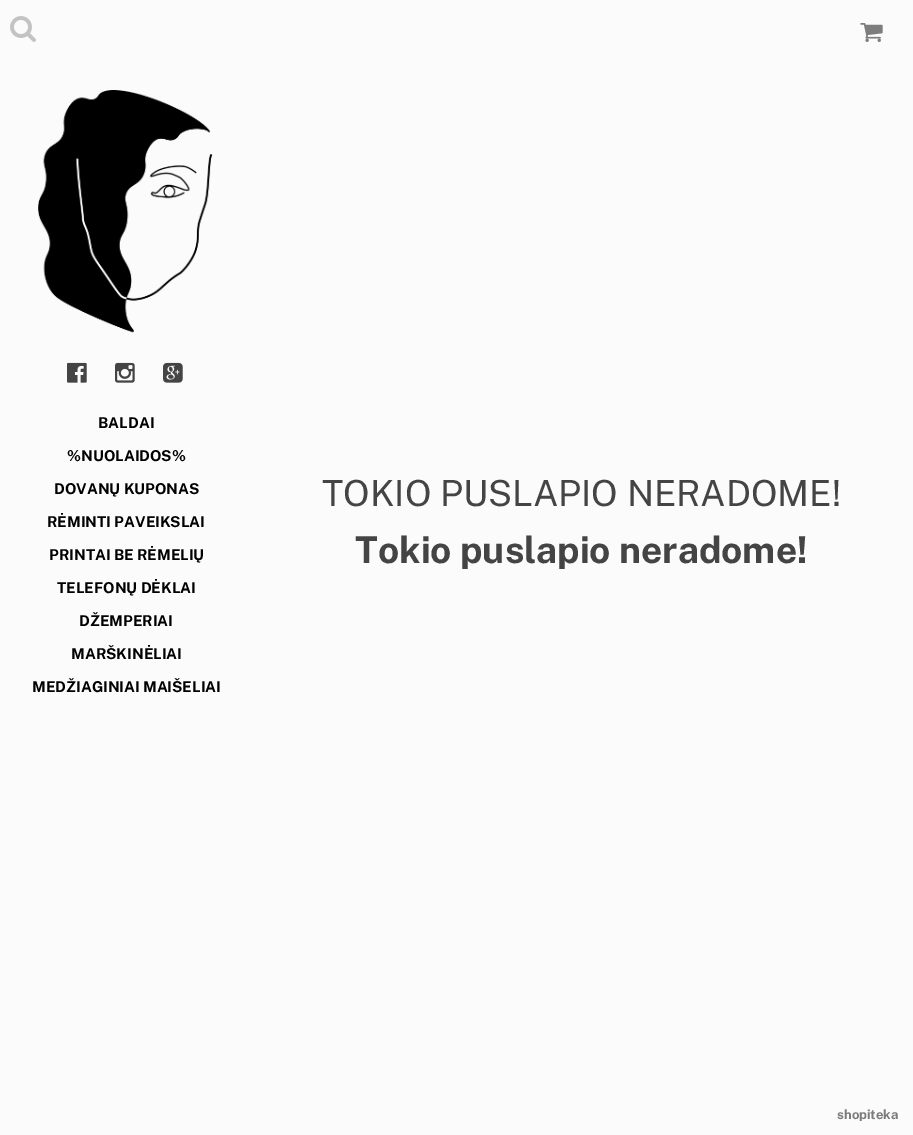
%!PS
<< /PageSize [913 1135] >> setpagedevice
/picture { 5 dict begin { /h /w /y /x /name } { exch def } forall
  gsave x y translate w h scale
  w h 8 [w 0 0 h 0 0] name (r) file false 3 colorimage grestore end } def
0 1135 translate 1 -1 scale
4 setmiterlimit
0.984 setgray
0 0 913 1135 rectfill
(img1.rgb) 860 23 23 19 picture
(img2.rgb) 10 16 26 26 picture
(img3.rgb) 38 90 175 243 picture
(img4.rgb) 67 362 20 21 picture
(img5.rgb) 115 362 20 21 picture
(img6.rgb) 163 362 20 21 picture
/PublicSans-Bold [15 0 0 -15 0 0] selectfont
0 setgray
98 428 moveto (BALDAI) show
67 461 moveto (%NUOLAIDOS%) show
54 494 moveto (DOVANŲ KUPONAS) show
47 527 moveto (RĖMINTI PAVEIKSLAI) show
49 560 moveto (PRINTAI BE RĖMELIŲ) show
57 593 moveto (TELEFONŲ DĖKLAI) show
79 626 moveto (DŽEMPERIAI) show
71 659 moveto (MARŠKINĖLIAI) show
32 692 moveto (MEDŽIAGINIAI MAIŠELIAI) show
/PublicSans-Regular [36 0 0 -36 0 0] selectfont
0.267 setgray
322 506 moveto (TOKIO PUSLAPIO NERADOME!) show
/PublicSans-Bold [37 0 0 -37 0 0] selectfont
355 563 moveto (Tokio puslapio neradome!) show
/PublicSans-Bold [13 0 0 -13 0 0] selectfont
0.482 setgray
837 1119 moveto (shopiteka) show
showpage
